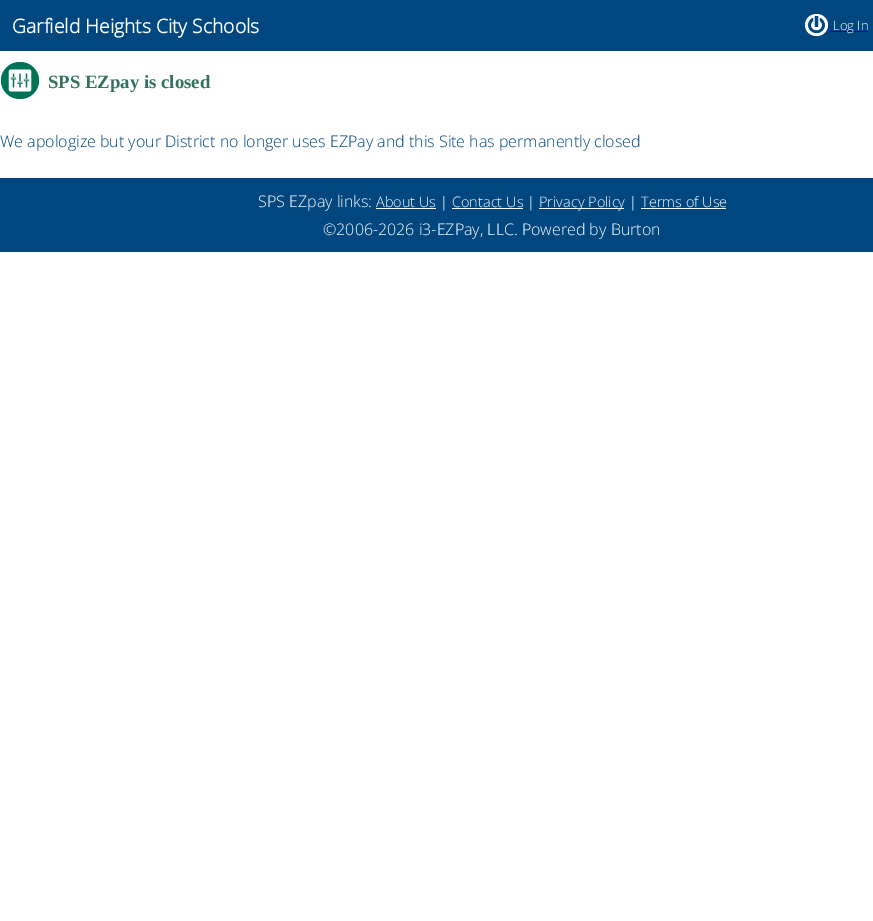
%!PS
<< /PageSize [873 921] >> setpagedevice
/picture { 5 dict begin { /h /w /y /x /name } { exch def } forall
  gsave x y translate w h scale
  w h 8 [w 0 0 h 0 0] name (r) file false 3 colorimage grestore end } def
0 921 translate 1 -1 scale
4 setmiterlimit
1 setgray
0 0 873 921 rectfill
0 0.275 0.498 setrgbcolor
0 0 873 51 rectfill
/OpenSans-Bold [19.25 0 0 -19.25 0 0] selectfont
1 setgray
12 33 moveto (Garfield Heights City Schools) show
(img1.rgb) 805 14 23 22 picture
0 0 0.933 setrgbcolor
829 31 39 1 rectfill
/OpenSans-Light [13 0 0 -13 0 0] selectfont
1 setgray
833 30 moveto (Log In) show
(img2.rgb) 1 62 38 37 picture
/LiberationSerif-Bold [18.75 0 0 -18.75 0 0] selectfont
0.2 0.443 0.353 setrgbcolor
48 88 moveto (SPS EZpay is closed) show
/OpenSans-Light [16 0 0 -16 0 0] selectfont
0 0.275 0.498 setrgbcolor
0 147 moveto (We apologize but your District no longer uses EZPay and this Site has permanently closed) show
0 178 873 74 rectfill
1 setgray
258 207 moveto (SPS EZpay links:) show
/OpenSans-Light [14.5 0 0 -14.5 0 0] selectfont
376 207 moveto (About Us) show
376 208 60 1 rectfill
440 207 moveto (|) show
452 207 moveto (Contact Us) show
452 208 71 1 rectfill
527 207 moveto (|) show
539 208 85 1 rectfill
539 207 moveto (Privacy Policy) show
629 207 moveto (|) show
641 207 moveto (Terms of Use) show
641 208 85 1 rectfill
/OpenSans-Light [16 0 0 -16 0 0] selectfont
323 235 moveto (©2006-2026 i3-EZPay, LLC. Powered by Burton) show
showpage
